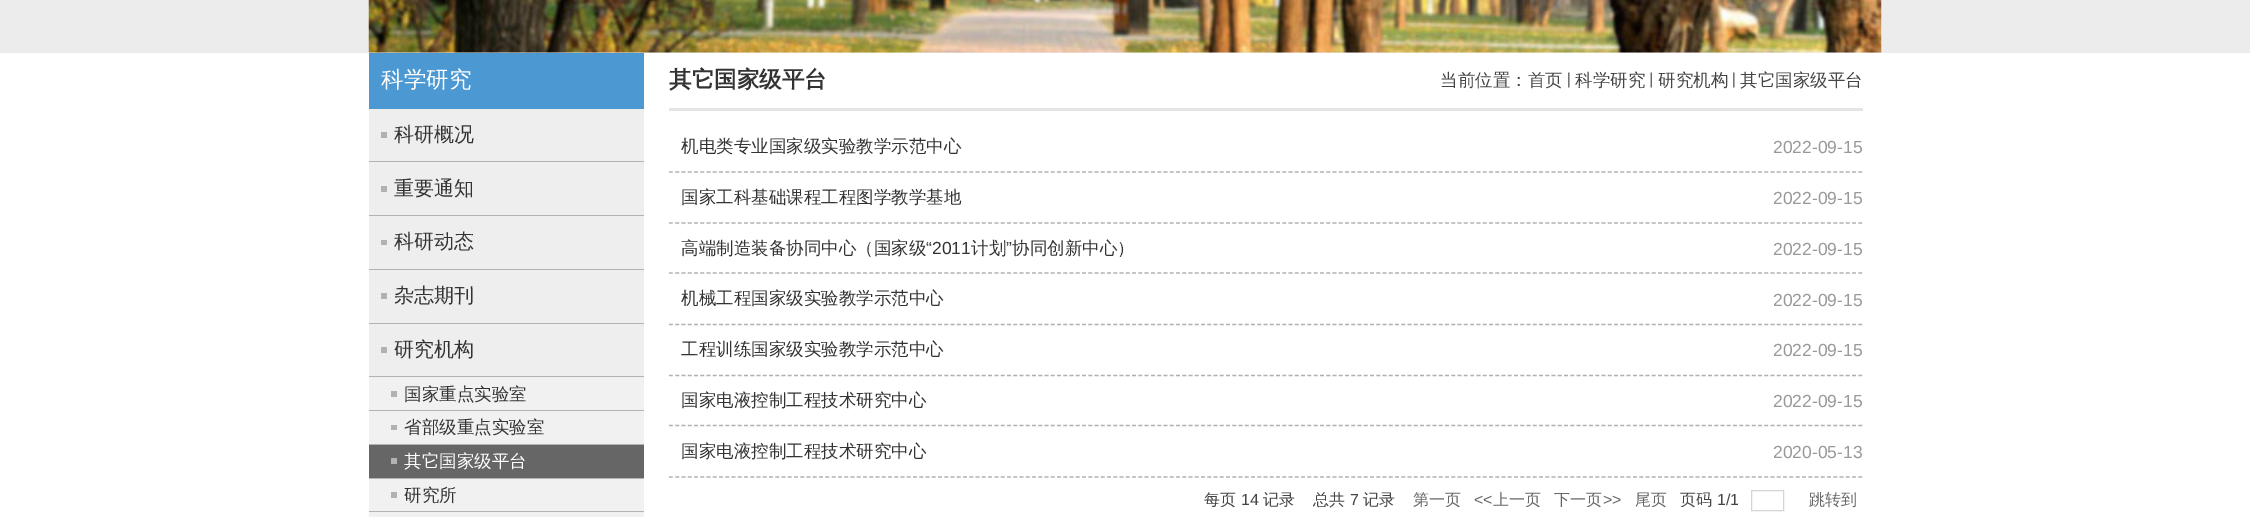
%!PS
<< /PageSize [2250 517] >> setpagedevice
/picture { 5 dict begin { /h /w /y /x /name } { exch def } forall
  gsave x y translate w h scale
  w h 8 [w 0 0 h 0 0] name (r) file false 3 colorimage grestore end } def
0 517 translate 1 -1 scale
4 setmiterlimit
1 setgray
0 0 2250 517 rectfill
0.925 setgray
0 0 2250 53 rectfill
(img1.rgb) 368 0 1514 53 picture
0.298 0.596 0.824 setrgbcolor
369 53 275 56 rectfill
/WenQuanYiZenHei-Medium [22.5 0 0 -22.5 0 0] selectfont
1 setgray
381 87 moveto (科学研究) show
0.933 setgray
369 109 275 106 rectfill
0.698 setgray
381 132 6 6 rectfill
0.702 setgray
369 161 275 1 rectfill
/WenQuanYiZenHei-Medium [20 0 0 -20 0 0] selectfont
0.2 setgray
394 141 moveto (科研概况) show
0.698 setgray
381 186 6 6 rectfill
0.702 setgray
369 215 275 1 rectfill
0.2 setgray
394 195 moveto (重要通知) show
0.933 setgray
369 216 275 53 rectfill
0.698 setgray
381 240 6 5 rectfill
0.702 setgray
369 269 275 1 rectfill
0.2 setgray
394 248 moveto (科研动态) show
0.933 setgray
369 270 275 53 rectfill
0.698 setgray
381 293 6 6 rectfill
0.702 setgray
369 323 275 1 rectfill
0.2 setgray
394 302 moveto (杂志期刊) show
0.933 setgray
369 324 275 54 rectfill
0.698 setgray
381 347 6 6 rectfill
0.702 setgray
369 376 275 1 rectfill
0.2 setgray
394 356 moveto (研究机构) show
0.945 setgray
369 378 275 32 rectfill
0.698 setgray
391 391 6 6 rectfill
0.702 setgray
369 410 275 1 rectfill
/WenQuanYiZenHei-Medium [17.5 0 0 -17.5 0 0] selectfont
0.2 setgray
404 400 moveto (国家重点实验室) show
0.945 setgray
369 411 275 33 rectfill
0.698 setgray
391 425 6 5 rectfill
0.702 setgray
369 444 275 1 rectfill
0.2 setgray
404 433 moveto (省部级重点实验室) show
0.4 setgray
369 445 275 33 rectfill
0.698 setgray
391 458 6 6 rectfill
0.702 setgray
369 478 275 1 rectfill
1 setgray
404 467 moveto (其它国家级平台) show
0.945 setgray
369 479 275 38 rectfill
0.698 setgray
391 492 6 6 rectfill
0.702 setgray
369 511 275 1 rectfill
0.2 setgray
404 501 moveto (研究所) show
0.898 setgray
669 108 1194 3 rectfill
/WenQuanYiZenHei-Bold [22.5 0 0 -22.5 0 0] selectfont
0.2 setgray
669 87 moveto (其它国家级平台) show
/WenQuanYiZenHei-Medium [17.5 0 0 -17.5 0 0] selectfont
0.271 setgray
1440 86 moveto (当前位置：首页) show
(img2.rgb) 1568 72 2 16 picture
1575 86 moveto (科学研究) show
(img3.rgb) 1650 72 2 16 picture
1658 86 moveto (研究机构) show
(img2.rgb) 1733 72 2 16 picture
1740 86 moveto (其它国家级平台) show
0.694 setgray
1.2 setlinewidth
[3.75 2.51] 0 setdash
newpath 669 172 moveto 1862.5 172 lineto stroke
0.2 setgray
681 152 moveto (机电类专业国家级实验教学示范中心) show
/LiberationSans-Regular [17.5 0 0 -17.5 0 0] selectfont
0.6 setgray
1773 153 moveto (2022-09-15) show
0.694 setgray
newpath 669 223 moveto 1862.5 223 lineto stroke
/WenQuanYiZenHei-Medium [17.5 0 0 -17.5 0 0] selectfont
0.2 setgray
681 203 moveto (国家工科基础课程工程图学教学基地) show
/LiberationSans-Regular [17.5 0 0 -17.5 0 0] selectfont
0.6 setgray
1773 204 moveto (2022-09-15) show
0.694 setgray
newpath 669 273 moveto 1862.5 273 lineto stroke
/WenQuanYiZenHei-Medium [17.5 0 0 -17.5 0 0] selectfont
0.2 setgray
681 254 moveto (高端制造装备协同中心（国家级) show
/LiberationSans-Regular [17.5 0 0 -17.5 0 0] selectfont
926 254 moveto (“2011) show
/WenQuanYiZenHei-Medium [17.5 0 0 -17.5 0 0] selectfont
971 254 moveto (计划) show
/LiberationSans-Regular [17.5 0 0 -17.5 0 0] selectfont
1006 254 moveto (”) show
/WenQuanYiZenHei-Medium [17.5 0 0 -17.5 0 0] selectfont
1012 254 moveto (协同创新中心）) show
/LiberationSans-Regular [17.5 0 0 -17.5 0 0] selectfont
0.6 setgray
1773 255 moveto (2022-09-15) show
0.694 setgray
newpath 669 324.5 moveto 1862.5 324.5 lineto stroke
/WenQuanYiZenHei-Medium [17.5 0 0 -17.5 0 0] selectfont
0.2 setgray
681 304 moveto (机械工程国家级实验教学示范中心) show
/LiberationSans-Regular [17.5 0 0 -17.5 0 0] selectfont
0.6 setgray
1773 306 moveto (2022-09-15) show
0.694 setgray
newpath 669 375.5 moveto 1862.5 375.5 lineto stroke
/WenQuanYiZenHei-Medium [17.5 0 0 -17.5 0 0] selectfont
0.2 setgray
681 355 moveto (工程训练国家级实验教学示范中心) show
/LiberationSans-Regular [17.5 0 0 -17.5 0 0] selectfont
0.6 setgray
1773 356 moveto (2022-09-15) show
0.694 setgray
newpath 669 425.5 moveto 1862.5 425.5 lineto stroke
/WenQuanYiZenHei-Medium [17.5 0 0 -17.5 0 0] selectfont
0.2 setgray
681 406 moveto (国家电液控制工程技术研究中心) show
/LiberationSans-Regular [17.5 0 0 -17.5 0 0] selectfont
0.6 setgray
1773 407 moveto (2022-09-15) show
0.694 setgray
newpath 669 477 moveto 1862.5 477 lineto stroke
/WenQuanYiZenHei-Medium [17.5 0 0 -17.5 0 0] selectfont
0.2 setgray
681 457 moveto (国家电液控制工程技术研究中心) show
/LiberationSans-Regular [17.5 0 0 -17.5 0 0] selectfont
0.6 setgray
1773 458 moveto (2020-05-13) show
/WenQuanYiZenHei-Medium [16 0 0 -16 0 0] selectfont
0.271 setgray
1204 505 moveto (每页) show
/LiberationSans-Regular [16 0 0 -16 0 0] selectfont
1241 505 moveto (14) show
/WenQuanYiZenHei-Medium [16 0 0 -16 0 0] selectfont
1263 505 moveto (记录) show
1313 505 moveto (总共) show
/LiberationSans-Regular [16 0 0 -16 0 0] selectfont
1350 505 moveto (7) show
/WenQuanYiZenHei-Medium [16 0 0 -16 0 0] selectfont
1363 505 moveto (记录) show
0.4 setgray
1413 505 moveto (第一页) show
/LiberationSans-Regular [16 0 0 -16 0 0] selectfont
1474 505 moveto (<<) show
/WenQuanYiZenHei-Medium [16 0 0 -16 0 0] selectfont
1493 505 moveto (上一页) show
1554 505 moveto (下一页) show
/LiberationSans-Regular [16 0 0 -16 0 0] selectfont
1603 505 moveto (>>) show
/WenQuanYiZenHei-Medium [16 0 0 -16 0 0] selectfont
1635 505 moveto (尾页) show
0.271 setgray
1680 505 moveto (页码) show
/LiberationSans-Regular [16 0 0 -16 0 0] selectfont
1717 505 moveto (1/1) show
0.835 setgray
1 setlinewidth
[] 0 setdash
1751.5 490.5 32 20 rectstroke
/WenQuanYiZenHei-Medium [16 0 0 -16 0 0] selectfont
0.4 setgray
1809 505 moveto (跳转到) show
showpage
